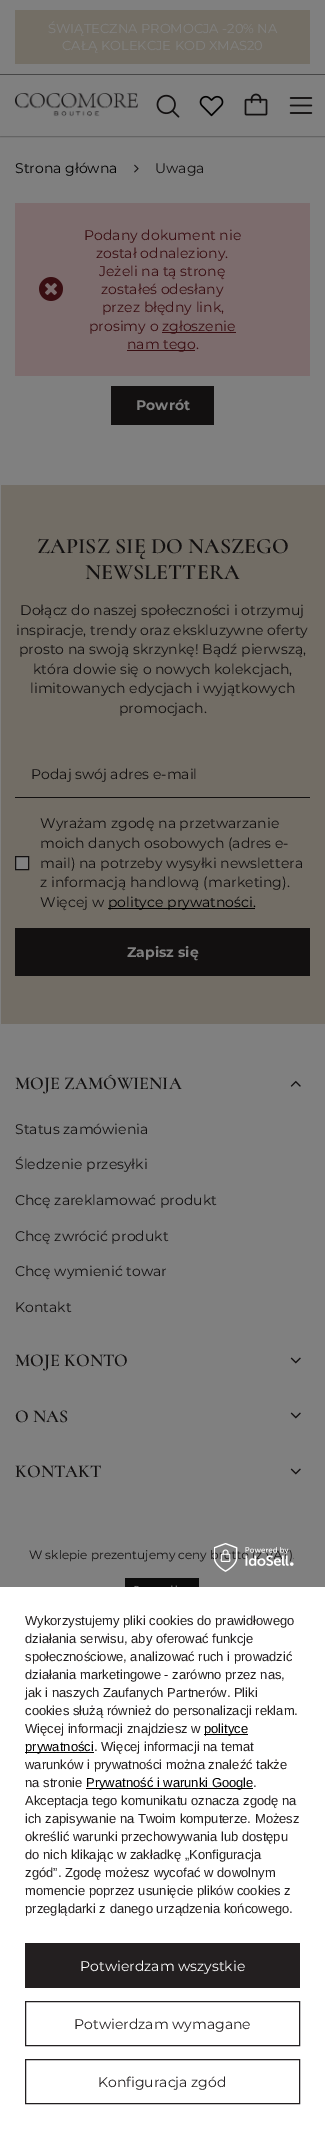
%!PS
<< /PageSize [325 2129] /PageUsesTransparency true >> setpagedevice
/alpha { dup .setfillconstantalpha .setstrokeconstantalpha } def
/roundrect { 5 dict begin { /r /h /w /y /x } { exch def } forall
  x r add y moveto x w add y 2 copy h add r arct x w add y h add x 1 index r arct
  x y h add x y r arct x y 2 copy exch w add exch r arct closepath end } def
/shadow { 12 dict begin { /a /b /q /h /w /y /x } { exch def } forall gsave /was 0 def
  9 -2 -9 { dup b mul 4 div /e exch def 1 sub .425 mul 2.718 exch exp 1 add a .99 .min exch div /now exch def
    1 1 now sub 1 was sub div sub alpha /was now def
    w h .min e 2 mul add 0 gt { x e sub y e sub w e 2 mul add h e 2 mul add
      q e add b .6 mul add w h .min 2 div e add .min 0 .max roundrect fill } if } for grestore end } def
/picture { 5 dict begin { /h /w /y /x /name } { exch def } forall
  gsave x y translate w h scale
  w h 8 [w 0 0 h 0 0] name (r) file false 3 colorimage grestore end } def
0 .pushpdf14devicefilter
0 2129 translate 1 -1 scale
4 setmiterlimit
0.502 setgray
0 0 325 2129 rectfill
gsave
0 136 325 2 rectclip
0 setgray
0 1 325 136 0 0.5 0.25 shadow
grestore
0.275 setgray
0 74 325 1 rectfill
0.451 0.431 0.396 setrgbcolor
15 10 295 54 rectfill
/Montserrat-Regular [13 0 0 -13 0 0] selectfont
0.502 setgray
48 33 moveto (ŚWIĄTECZNA PROMOCJA -20% NA) show
62 50 moveto (CAŁĄ KOLEKCJE KOD XMAS20) show
(img1.rgb) 15 93 123 24 picture
(img2.rgb) 156 94 24 24 picture
(img3.rgb) 199 95 25 22 picture
(img4.rgb) 244 93 24 23 picture
(img5.rgb) 289 97 24 17 picture
/Montserrat-Regular [14 0 0 -14 0 0] selectfont
0 setgray
15 173 moveto (Strona główna) show
(img6.rgb) 134 164 5 9 picture
0.071 0.063 0.063 setrgbcolor
155 173 moveto (Uwaga) show
0.486 0.424 0.427 setrgbcolor
15 203 295 173 rectfill
(img7.rgb) 39 277 24 24 picture
0.224 0.055 0.071 setrgbcolor
84 240 moveto (Podany dokument nie) show
96 258 moveto (został odnaleziony.) show
99 276 moveto (Jeżeli na tą stronę) show
101 294 moveto (zostałeś odesłany) show
102 312 moveto (przez błędny link,) show
89 331 moveto (prosimy o) show
162 332 74 1 rectfill
162 331 moveto (zgłoszenie) show
127 350 68 1 rectfill
127 349 moveto (nam tego.) show
0.071 0.063 0.063 setrgbcolor
111 386 103 39 rectfill
/Montserrat-Bold [14 0 0 -14 0 0] selectfont
0.502 setgray
136 410 moveto (Powrót) show
0.447 0.427 0.396 setrgbcolor
1 485 324 539 rectfill
/Cormorant-SemiBold [22 0 0 -22 0 0] selectfont
0.071 0.063 0.063 setrgbcolor
37 553 moveto (ZAPISZ SIĘ DO NASZEGO) show
85 579 moveto (NEWSLETTERA) show
/Montserrat-Regular [14 0 0 -14 0 0] selectfont
20 615 moveto (Dołącz do naszej społeczności i otrzymuj) show
16 635 moveto (inspiracje, trendy oraz ekskluzywne oferty) show
19 654 moveto (prosto na swoją skrzynkę! Bądź pierwszą,) show
33 674 moveto (która dowie się o nowych kolekcjach,) show
30 693 moveto (limitowanych edycjach i wyjątkowych) show
119 713 moveto (promocjach.) show
31 779 moveto (Podaj swój adres e-mail) show
15 797 295 1 rectfill
40 828 moveto (Wyrażam zgodę na przetwarzanie) show
40 848 moveto (moich danych osobowych \(adres e-) show
0.502 setgray
newpath 15.5 856.5 moveto 28.5 856.5 lineto 28.5 869.5 lineto 15.5 869.5 lineto closepath gsave fill grestore
0.071 0.063 0.063 setrgbcolor
stroke
40 868 moveto (mail\) na potrzeby wysyłki newslettera) show
40 887 moveto (z informacją handlową \(marketing\).) show
40 907 moveto (Więcej w) show
0 setgray
108 908 147 1 rectfill
108 907 moveto (polityce prywatności.) show
0.071 0.063 0.063 setrgbcolor
15 928 295 48 rectfill
/Montserrat-Bold [14 0 0 -14 0 0] selectfont
0.502 setgray
127 957 moveto (Zapisz się) show
/Cormorant-SemiBold [18 0 0 -18 0 0] selectfont
0.071 0.063 0.063 setrgbcolor
15 1089 moveto (MOJE ZAMÓWIENIA) show
(img8.rgb) 290 1080 11 7 picture
/Montserrat-Regular [14 0 0 -14 0 0] selectfont
15 1134 moveto (Status zamówienia) show
15 1169 moveto (Śledzenie przesyłki) show
15 1205 moveto (Chcę zareklamować produkt) show
15 1241 moveto (Chcę zwrócić produkt) show
15 1276 moveto (Chcę wymienić towar) show
15 1312 moveto (Kontakt) show
/Cormorant-SemiBold [18 0 0 -18 0 0] selectfont
15 1366 moveto (MOJE KONTO) show
(img9.rgb) 290 1357 11 7 picture
15 1422 moveto (O NAS) show
(img9.rgb) 290 1412 11 7 picture
15 1477 moveto (KONTAKT) show
(img9.rgb) 290 1468 11 7 picture
/Montserrat-Regular [12 0 0 -12 0 0] selectfont
29 1559 moveto (W sklepie prezentujemy ceny brutto \(z VAT\).) show
(img10.rgb) 125 1578 74 9 picture
1 setgray
0 1587 325 542 rectfill
(img11.rgb) 214 1543 80 29 picture
/LiberationSans-Regular [13 0 0 -13 0 0] selectfont
0.137 0.122 0.125 setrgbcolor
25 1625 moveto (Wykorzystujemy pliki cookies do prawidłowego) show
25 1643 moveto (działania serwisu, aby oferować funkcje) show
25 1661 moveto (społecznościowe, analizować ruch i prowadzić) show
25 1679 moveto (działania marketingowe - zarówno przez nas,) show
25 1697 moveto (jak i naszych Zaufanych Partnerów. Pliki) show
25 1715 moveto (cookies służą również do personalizacji reklam.) show
25 1733 moveto (Więcej informacji znajdziesz w) show
0 setgray
204 1734 44 1 rectfill
204 1733 moveto (polityce) show
25 1752 69 1 rectfill
25 1751 moveto (prywatności) show
0.137 0.122 0.125 setrgbcolor
94 1751 moveto (. Więcej informacji na temat) show
25 1769 moveto (warunków i prywatności można znaleźć także) show
25 1787 moveto (na stronie) show
0 setgray
86 1788 167 1 rectfill
86 1787 moveto (Prywatność i warunki Google) show
0.137 0.122 0.125 setrgbcolor
253 1787 moveto (.) show
25 1805 moveto (Akceptacja tego komunikatu oznacza zgodę na) show
25 1823 moveto (ich zapisywanie na Twoim komputerze. Możesz) show
25 1841 moveto (określić warunki przechowywania lub dostępu) show
25 1859 moveto (do nich klikając w zakładkę „Konfiguracja) show
25 1877 moveto (zgód”. Zgodę możesz wycofać w dowolnym) show
25 1895 moveto (momencie poprzez usunięcie plików cookies z) show
25 1913 moveto (przeglądarki z danego urządzenia końcowego.) show
25 1943 275 45 rectfill
/Montserrat-Regular [14 0 0 -14 0 0] selectfont
1 setgray
80 1971 moveto (Potwierdzam wszystkie) show
0.137 0.122 0.125 setrgbcolor
25.5 2001.5 274 44 rectstroke
74 2029 moveto (Potwierdzam wymagane) show
25.5 2059.5 274 44 rectstroke
98 2087 moveto (Konfiguracja zgód) show
.poppdf14devicefilter showpage
